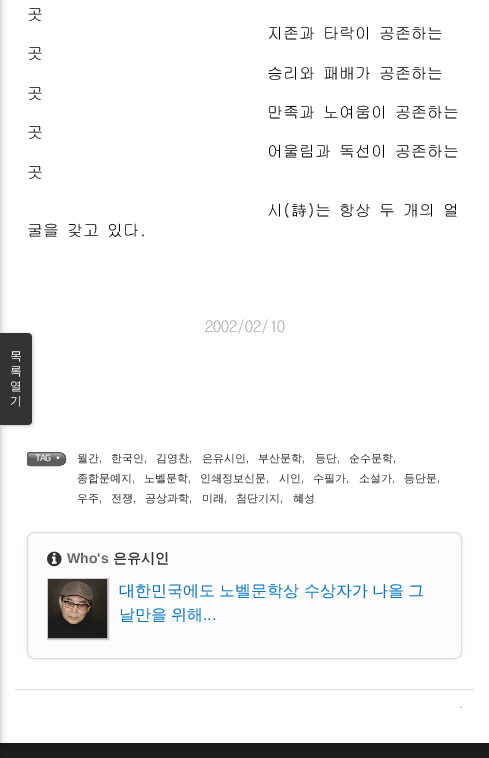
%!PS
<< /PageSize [489 758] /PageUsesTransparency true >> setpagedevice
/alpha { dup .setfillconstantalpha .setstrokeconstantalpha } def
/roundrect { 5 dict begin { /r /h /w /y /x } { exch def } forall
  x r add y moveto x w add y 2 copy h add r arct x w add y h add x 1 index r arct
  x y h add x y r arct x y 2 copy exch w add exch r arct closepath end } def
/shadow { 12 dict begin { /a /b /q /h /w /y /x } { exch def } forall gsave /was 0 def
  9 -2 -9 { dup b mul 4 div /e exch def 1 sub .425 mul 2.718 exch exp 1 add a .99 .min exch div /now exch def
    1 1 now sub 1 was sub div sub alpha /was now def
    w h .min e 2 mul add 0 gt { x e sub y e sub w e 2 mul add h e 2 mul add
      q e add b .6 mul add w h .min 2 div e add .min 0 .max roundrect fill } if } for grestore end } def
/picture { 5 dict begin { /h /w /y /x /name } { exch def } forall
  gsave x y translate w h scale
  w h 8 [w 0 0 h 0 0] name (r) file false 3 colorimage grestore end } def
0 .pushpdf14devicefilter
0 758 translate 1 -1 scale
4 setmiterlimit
0.133 setgray
0 0 489 758 rectfill
0 setgray
0 -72 489 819 0 24 0.5 shadow
1 setgray
0 0 489 743 rectfill
0 setgray
-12 0 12 758 0 4 0.3 shadow
1 334 32 92 4 1.5 0.2 shadow
0.2 setgray
newpath 0 333 moveto 28 333 lineto 30 333 32 335 32 337 curveto 32 421 lineto 32 423 30 425 28 425 curveto 0 425 lineto closepath fill
/WenQuanYiZenHei-Medium [12 0 0 -12 0 0] selectfont
1 setgray
10 360 moveto (목) show
10 375 moveto (록) show
10 390 moveto (열) show
10 405 moveto (기) show
/GulimChe-Regular [16 0 0 -16 0 0] selectfont
0 setgray
27 20 moveto (곳) show
267 39 moveto (지존과 타락이 공존하는) show
27 59 moveto (곳) show
267 79 moveto (승리와 패배가 공존하는) show
27 99 moveto (곳) show
267 118 moveto (만족과 노여움이 공존하는) show
27 138 moveto (곳) show
267 157 moveto (어울림과 독선이 공존하는) show
27 178 moveto (곳) show
267 216 moveto (시\(詩\)는 항상 두 개의 얼) show
27 236 moveto (굴을 갖고 있다.) show
0.655 0.643 0.643 setrgbcolor
205 332 moveto (2002/02/10) show
gsave
newpath 30 452 moveto 59 452 lineto 63 452 66 455 66 459 curveto 66 463 63 466 59 466 curveto 30 466 lineto 28.5 466 27 464.5 27 463 curveto 27 455 lineto 27 453.5 28.5 452 30 452 curveto closepath clip newpath
gsave newpath 27 453 moveto 66 453 lineto 66 465 lineto 27 465 lineto closepath clip newpath
<< /ShadingType 2 /ColorSpace /DeviceRGB /Coords [47 447 47 465] /Extend [true true] /Function << /FunctionType 3 /Domain [0 1] /Functions [<< /FunctionType 2 /Domain [0 1] /C0 [1 1 1] /C1 [0.361 0.361 0.361] /N 1 >> << /FunctionType 2 /Domain [0 1] /C0 [0.361 0.361 0.361] /C1 [0.361 0.361 0.361] /N 1 >>] /Bounds [0.67] /Encode [0 1 0 1] >> >> shfill grestore
grestore
0.361 setgray
newpath 30 452.5 moveto 59 452.5 lineto 62.5 452.5 65.5 455.5 65.5 459 curveto 65.5 462.5 62.5 465.5 59 465.5 curveto 30 465.5 lineto 28.5 465.5 27.5 464.5 27.5 463 curveto 27.5 455 lineto 27.5 453.5 28.5 452.5 30 452.5 curveto closepath stroke
/LiberationMono-Regular [10 0 0 -10 0 0] selectfont
1 setgray
35 461 moveto -1 0 (TAG •) ashow
/WenQuanYiZenHei-Medium [11 0 0 -11 0 0] selectfont
0.2 setgray
77 462 moveto (월간) show
/LiberationSans-Regular [11 0 0 -11 0 0] selectfont
0.267 setgray
99 462 moveto (,) show
/WenQuanYiZenHei-Medium [11 0 0 -11 0 0] selectfont
0.2 setgray
111 462 moveto (한국인) show
/LiberationSans-Regular [11 0 0 -11 0 0] selectfont
0.267 setgray
144 462 moveto (,) show
/WenQuanYiZenHei-Medium [11 0 0 -11 0 0] selectfont
0.2 setgray
156 462 moveto (김영찬) show
/LiberationSans-Regular [11 0 0 -11 0 0] selectfont
0.267 setgray
189 462 moveto (,) show
/WenQuanYiZenHei-Medium [11 0 0 -11 0 0] selectfont
0.2 setgray
202 462 moveto (은유시인) show
/LiberationSans-Regular [11 0 0 -11 0 0] selectfont
0.267 setgray
246 462 moveto (,) show
/WenQuanYiZenHei-Medium [11 0 0 -11 0 0] selectfont
0.2 setgray
258 462 moveto (부산문학) show
/LiberationSans-Regular [11 0 0 -11 0 0] selectfont
0.267 setgray
302 462 moveto (,) show
/WenQuanYiZenHei-Medium [11 0 0 -11 0 0] selectfont
0.2 setgray
315 462 moveto (등단) show
/LiberationSans-Regular [11 0 0 -11 0 0] selectfont
0.267 setgray
337 462 moveto (,) show
/WenQuanYiZenHei-Medium [11 0 0 -11 0 0] selectfont
0.2 setgray
349 462 moveto (순수문학) show
/LiberationSans-Regular [11 0 0 -11 0 0] selectfont
0.267 setgray
393 462 moveto (,) show
/WenQuanYiZenHei-Medium [11 0 0 -11 0 0] selectfont
0.2 setgray
77 482 moveto (종합문예지) show
/LiberationSans-Regular [11 0 0 -11 0 0] selectfont
0.267 setgray
132 482 moveto (,) show
/WenQuanYiZenHei-Medium [11 0 0 -11 0 0] selectfont
0.2 setgray
144 482 moveto (노벨문학) show
/LiberationSans-Regular [11 0 0 -11 0 0] selectfont
0.267 setgray
188 482 moveto (,) show
/WenQuanYiZenHei-Medium [11 0 0 -11 0 0] selectfont
0.2 setgray
200 482 moveto (인쇄정보신문) show
/LiberationSans-Regular [11 0 0 -11 0 0] selectfont
0.267 setgray
266 482 moveto (,) show
/WenQuanYiZenHei-Medium [11 0 0 -11 0 0] selectfont
0.2 setgray
279 482 moveto (시인) show
/LiberationSans-Regular [11 0 0 -11 0 0] selectfont
0.267 setgray
301 482 moveto (,) show
/WenQuanYiZenHei-Medium [11 0 0 -11 0 0] selectfont
0.2 setgray
313 482 moveto (수필가) show
/LiberationSans-Regular [11 0 0 -11 0 0] selectfont
0.267 setgray
346 482 moveto (,) show
/WenQuanYiZenHei-Medium [11 0 0 -11 0 0] selectfont
0.2 setgray
359 482 moveto (소설가) show
/LiberationSans-Regular [11 0 0 -11 0 0] selectfont
0.267 setgray
392 482 moveto (,) show
/WenQuanYiZenHei-Medium [11 0 0 -11 0 0] selectfont
0.2 setgray
404 482 moveto (등단문) show
/LiberationSans-Regular [11 0 0 -11 0 0] selectfont
0.267 setgray
437 482 moveto (,) show
/WenQuanYiZenHei-Medium [11 0 0 -11 0 0] selectfont
0.2 setgray
77 502 moveto (우주) show
/LiberationSans-Regular [11 0 0 -11 0 0] selectfont
0.267 setgray
99 502 moveto (,) show
/WenQuanYiZenHei-Medium [11 0 0 -11 0 0] selectfont
0.2 setgray
111 502 moveto (전쟁) show
/LiberationSans-Regular [11 0 0 -11 0 0] selectfont
0.267 setgray
133 502 moveto (,) show
/WenQuanYiZenHei-Medium [11 0 0 -11 0 0] selectfont
0.2 setgray
145 502 moveto (공상과학) show
/LiberationSans-Regular [11 0 0 -11 0 0] selectfont
0.267 setgray
189 502 moveto (,) show
/WenQuanYiZenHei-Medium [11 0 0 -11 0 0] selectfont
0.2 setgray
202 502 moveto (미래) show
/LiberationSans-Regular [11 0 0 -11 0 0] selectfont
0.267 setgray
224 502 moveto (,) show
/WenQuanYiZenHei-Medium [11 0 0 -11 0 0] selectfont
0.2 setgray
236 502 moveto (첨단기지) show
/LiberationSans-Regular [11 0 0 -11 0 0] selectfont
0.267 setgray
280 502 moveto (,) show
/WenQuanYiZenHei-Medium [11 0 0 -11 0 0] selectfont
0.2 setgray
293 502 moveto (혜성) show
0 setgray
30 536 429 121 4 4.5 0.1 shadow
0.988 setgray
27.5 532.5 434 126 6.5 roundrect gsave fill grestore
0.867 setgray
stroke
(img1.rgb) 47 551 15 16 picture
/LiberationSans-Bold [14 0 0 -14 0 0] selectfont
0.4 setgray
67 563 moveto (Who's) show
/WenQuanYiZenHei-Bold [14 0 0 -14 0 0] selectfont
0.2 setgray
113 563 moveto (은유시인) show
0.8 setgray
47.5 578.5 61 61 rectstroke
(img2.rgb) 48 579 60 60 picture
/WenQuanYiZenHei-Medium [16 0 0 -16 0 0] selectfont
0 0.459 0.784 setrgbcolor
119 596 moveto -0.5 0 32 (대한민국에도 노벨문학상 수상자가 나올 그) widthshow
119 620 moveto -0.5 0 32 (날만을 위해) widthshow
/LiberationSans-Regular [16 0 0 -16 0 0] selectfont
203 620 moveto (...) show
0.867 setgray
15 689 459 1 rectfill
0.827 setgray
newpath 461 707 1 0 360 arc closepath fill
.poppdf14devicefilter showpage
